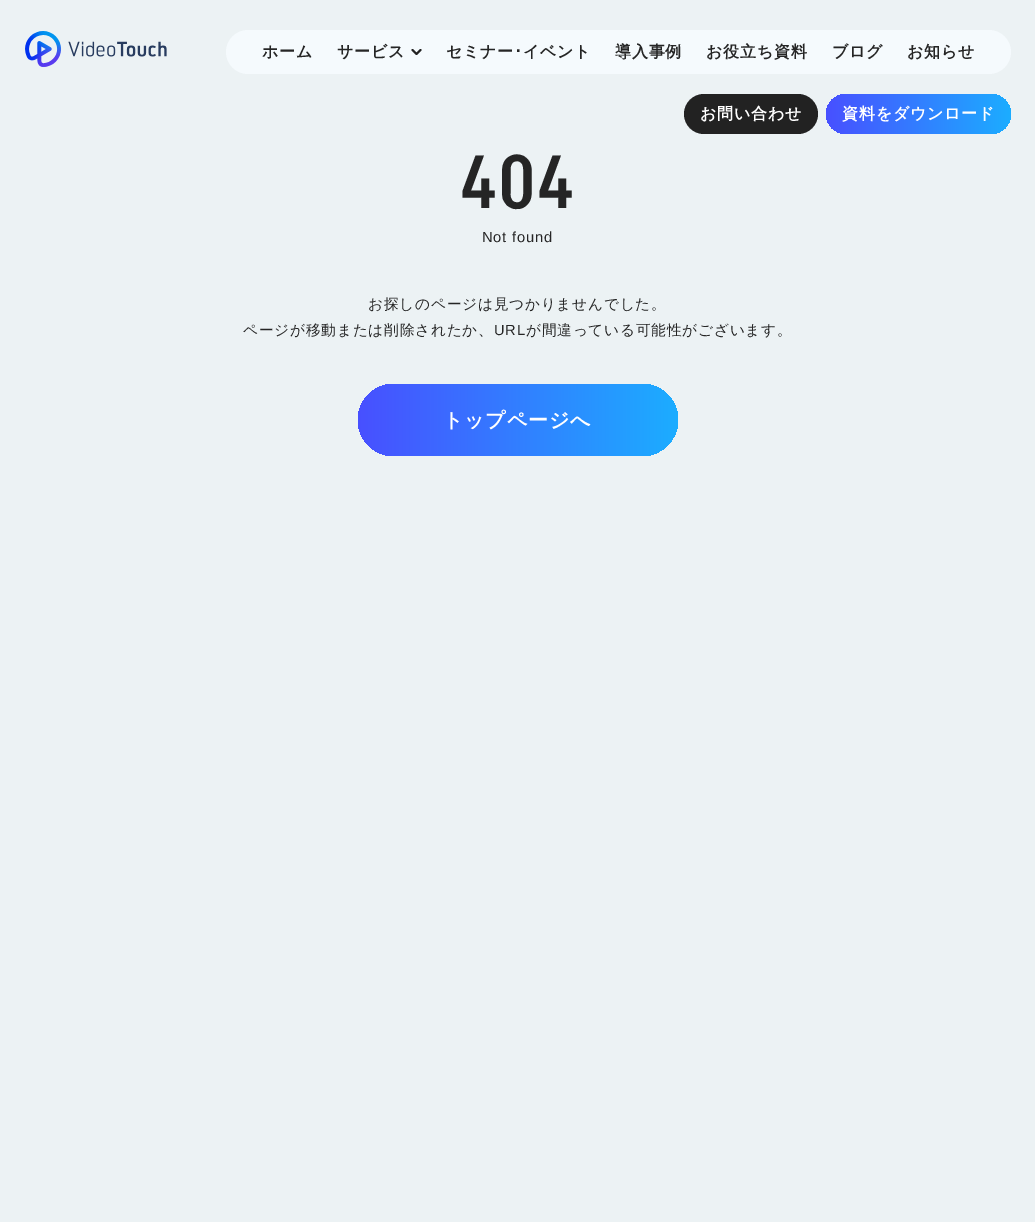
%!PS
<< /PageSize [1035 1222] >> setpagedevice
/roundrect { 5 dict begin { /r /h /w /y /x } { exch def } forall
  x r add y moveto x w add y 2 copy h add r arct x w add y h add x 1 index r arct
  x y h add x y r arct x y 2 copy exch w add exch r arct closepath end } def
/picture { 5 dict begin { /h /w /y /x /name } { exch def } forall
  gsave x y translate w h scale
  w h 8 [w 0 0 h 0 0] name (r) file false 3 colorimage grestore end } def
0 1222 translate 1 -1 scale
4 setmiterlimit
0.925 0.949 0.957 setrgbcolor
0 0 1035 1222 rectfill
(img1.rgb) 25 31 142 37 picture
0.961 0.98 0.992 setrgbcolor
226 30 785 44 22 roundrect fill
/WenQuanYiZenHei-Bold [16 0 0 -16 0 0] selectfont
0.145 setgray
262 57 moveto 0.75 0 (ホーム) ashow
337 57 moveto 0.75 0 (サービス) ashow
0.133 setgray
2 setlinewidth
1 setlinecap
1 setlinejoin
newpath 412.5 50 moveto 416.5 54 lineto 420.5 50 lineto stroke
0.145 setgray
446 57 moveto 0.75 0 (セミナー) ashow
/IPAPGothic-Bold [16 0 0 -16 0 0] selectfont
514 57 moveto 0.75 0 (･) ashow
/WenQuanYiZenHei-Bold [16 0 0 -16 0 0] selectfont
523 57 moveto 0.75 0 (イベント) ashow
615 57 moveto 0.75 0 (導入事例) ashow
706 57 moveto 0.75 0 (お役立ち資料) ashow
832 57 moveto 0.75 0 (ブログ) ashow
907 57 moveto 0.75 0 (お知らせ) ashow
0.133 setgray
684 94 134 40 20 roundrect fill
1 setgray
700 119 moveto 0.75 0 (お問い合わせ) ashow
gsave 826 94 185 40 20 roundrect clip newpath
<< /ShadingType 2 /ColorSpace /DeviceRGB /Coords [1011 114 826 114] /Extend [true true] /Function << /FunctionType 2 /Domain [0 1] /C0 [0.11 0.678 1] /C1 [0.282 0.314 1] /N 1 >> >> shfill grestore
842 119 moveto 0.75 0 (資料をダウンロード) ashow
/Akshar-Medium [74 0 0 -74 0 0] selectfont
0.145 setgray
460 208 moveto 0.75 0 (404) ashow
/LiberationSans-Regular [14.7 0 0 -14.7 0 0] selectfont
482 242 moveto 0.75 0 (Not found) ashow
/WenQuanYiZenHei-Medium [14.7 0 0 -14.7 0 0] selectfont
368 309 moveto 0.75 0 (お探しのページは見つかりませんでした。) ashow
243 335 moveto 0.75 0 (ページが移動または削除されたか、) ashow
/LiberationSans-Regular [14.7 0 0 -14.7 0 0] selectfont
494 335 moveto 0.75 0 (URL) ashow
/WenQuanYiZenHei-Medium [14.7 0 0 -14.7 0 0] selectfont
526 335 moveto 0.75 0 (が間違っている可能性がございます。) ashow
gsave 358 384 320 72 36 roundrect clip newpath
<< /ShadingType 2 /ColorSpace /DeviceRGB /Coords [678 420 358 420] /Extend [true true] /Function << /FunctionType 2 /Domain [0 1] /C0 [0.11 0.678 1] /C1 [0.282 0.314 1] /N 1 >> >> shfill grestore
/WenQuanYiZenHei-Bold [20 0 0 -20 0 0] selectfont
1 setgray
443 427 moveto 0.75 0 (トップページへ) ashow
showpage
